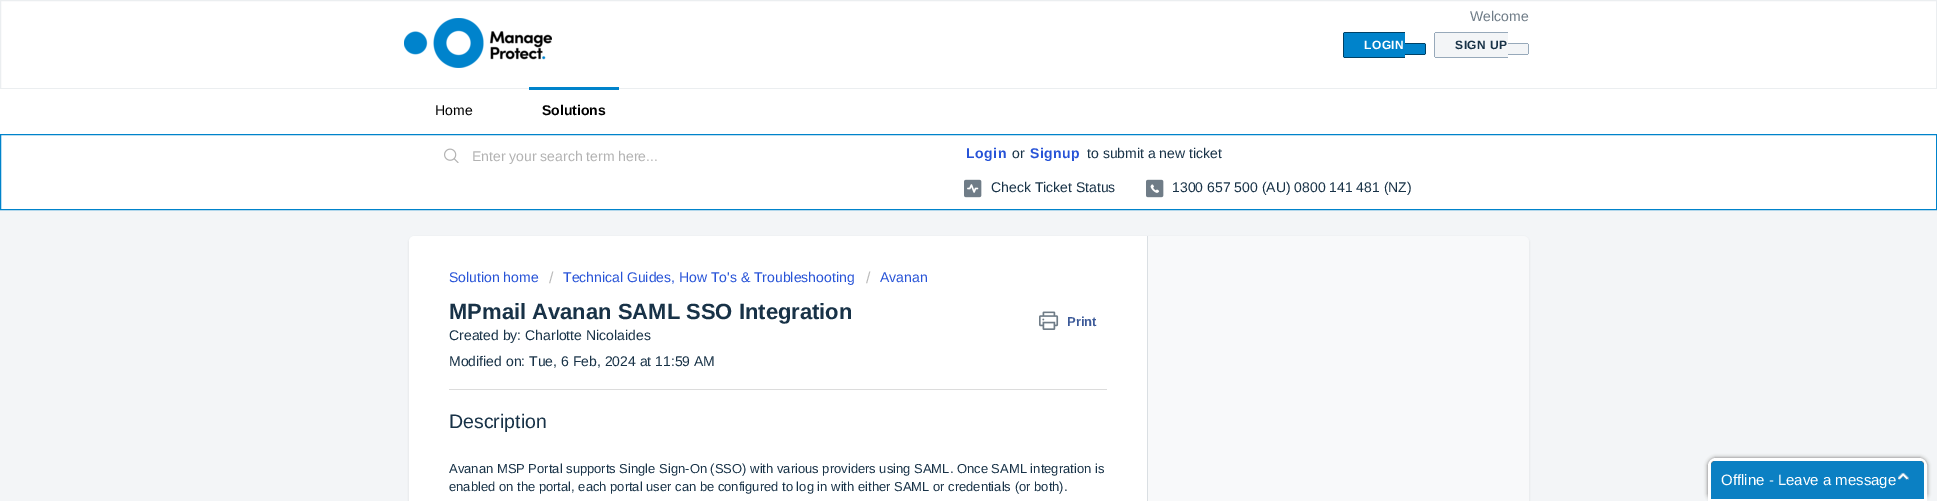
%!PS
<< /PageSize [1937 501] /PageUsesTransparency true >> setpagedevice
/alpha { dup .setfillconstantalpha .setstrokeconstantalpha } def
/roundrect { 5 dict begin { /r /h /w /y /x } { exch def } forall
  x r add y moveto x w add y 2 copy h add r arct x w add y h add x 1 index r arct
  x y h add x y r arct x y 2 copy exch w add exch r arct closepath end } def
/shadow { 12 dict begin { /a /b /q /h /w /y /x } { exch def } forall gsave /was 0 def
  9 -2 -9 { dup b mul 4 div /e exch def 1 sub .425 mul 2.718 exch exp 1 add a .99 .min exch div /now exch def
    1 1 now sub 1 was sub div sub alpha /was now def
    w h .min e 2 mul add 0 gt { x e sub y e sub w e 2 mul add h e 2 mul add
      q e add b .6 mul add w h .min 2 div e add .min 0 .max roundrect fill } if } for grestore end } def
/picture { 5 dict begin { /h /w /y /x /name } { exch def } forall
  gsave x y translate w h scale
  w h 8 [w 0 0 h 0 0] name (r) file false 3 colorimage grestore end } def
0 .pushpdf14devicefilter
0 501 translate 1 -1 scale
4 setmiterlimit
0.953 0.961 0.969 setrgbcolor
0 0 1937 501 rectfill
1 setgray
newpath 0.5 0.5 moveto 1936.5 0.5 lineto 1936.5 88.5 lineto 0.5 88.5 lineto closepath gsave fill grestore
0.922 0.933 0.941 setrgbcolor
stroke
(img1.rgb) 404 18 148 50 picture
/LiberationSans-Regular [14 0 0 -14 0 0] selectfont
0.435 0.486 0.529 setrgbcolor
1470 21 moveto (Welcome) show
0 0.514 0.796 setrgbcolor
newpath 1345 32 moveto 1405 32 lineto 1405 58 lineto 1345 58 lineto 1344 58 1343 57 1343 56 curveto 1343 34 lineto 1343 33 1344 32 1345 32 curveto closepath fill
/LiberationSans-Bold [12 0 0 -12 0 0] selectfont
1 setgray
1364 49 moveto 0.5 0 (LOGIN) ashow
0 0.255 0.396 setrgbcolor
1344 32 61 1 rectfill
1344 57 61 1 rectfill
1343 33 1 24 rectfill
0 0.514 0.796 setrgbcolor
newpath 1405 43 moveto 1424 43 lineto 1425 43 1426 44 1426 45 curveto 1426 53 lineto 1426 54 1425 55 1424 55 curveto 1405 55 lineto closepath fill
0 0.255 0.396 setrgbcolor
1405 43 20 1 rectfill
1425 44 1 10 rectfill
1405 54 20 1 rectfill
0.953 0.961 0.969 setrgbcolor
newpath 1436 32 moveto 1508 32 lineto 1508 58 lineto 1436 58 lineto 1435 58 1434 57 1434 56 curveto 1434 34 lineto 1434 33 1435 32 1436 32 curveto closepath fill
0.094 0.196 0.278 setrgbcolor
1455 49 moveto 0.5 0 (SIGN UP) ashow
0.592 0.663 0.729 setrgbcolor
1435 32 73 1 rectfill
1435 57 73 1 rectfill
1434 33 1 24 rectfill
0.953 0.961 0.969 setrgbcolor
newpath 1508 43 moveto 1527 43 lineto 1528 43 1529 44 1529 45 curveto 1529 53 lineto 1529 54 1528 55 1527 55 curveto 1508 55 lineto closepath fill
0.592 0.663 0.729 setrgbcolor
1508 43 20 1 rectfill
1528 44 1 10 rectfill
1508 54 20 1 rectfill
1 setgray
0 89 1937 45 rectfill
/LiberationSans-Regular [14 0 0 -14 0 0] selectfont
0 setgray
435 115 moveto (Home) show
0 0.514 0.796 setrgbcolor
529 87 90 3 rectfill
/LiberationSans-Bold [14 0 0 -14 0 0] selectfont
0 setgray
542 115 moveto (Solutions) show
1 setgray
newpath 0.5 134.5 moveto 1936.5 134.5 lineto 1936.5 209.5 lineto 0.5 209.5 lineto closepath gsave fill grestore
0 0.514 0.796 setrgbcolor
stroke
(img2.rgb) 444 148 15 15 picture
/LiberationSans-Regular [14 0 0 -14 0 0] selectfont
0.698 setgray
472 161 moveto (Enter your search term here...) show
/LiberationSans-Bold [14 0 0 -14 0 0] selectfont
0.153 0.325 0.843 setrgbcolor
966 158 moveto 0.5 0 (Login) ashow
/LiberationSans-Regular [14 0 0 -14 0 0] selectfont
0.094 0.196 0.278 setrgbcolor
1012 158 moveto (or) show
/LiberationSans-Bold [14 0 0 -14 0 0] selectfont
0.153 0.325 0.843 setrgbcolor
1030 158 moveto 0.5 0 (Signup) ashow
/LiberationSans-Regular [14 0 0 -14 0 0] selectfont
0.094 0.196 0.278 setrgbcolor
1087 158 moveto (to submit a new ticket) show
(img3.rgb) 964 179 18 19 picture
991 192 moveto (Check Ticket Status) show
(img4.rgb) 1146 179 18 19 picture
1172 192 moveto (1300 657 500 \(AU\) 0800 141 481 \(NZ\)) show
0.247 0.247 0.267 setrgbcolor
409 237 1120 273 6 1 0.15 shadow
0.973 0.976 0.98 setrgbcolor
409 236 1120 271 6 roundrect fill
1 setgray
newpath 415 236 moveto 1148 236 lineto 1148 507 lineto 415 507 lineto 411.5 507 409 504.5 409 501 curveto 409 242 lineto 409 238.5 411.5 236 415 236 curveto closepath fill
0.855 0.875 0.89 setrgbcolor
1147 236 1 265 rectfill
0.153 0.325 0.843 setrgbcolor
449 282 moveto (Solution home) show
/LiberationSans-Regular [16 0 0 -16 0 0] selectfont
0.733 setgray
549 283 moveto (/) show
/LiberationSans-Regular [14 0 0 -14 0 0] selectfont
0.153 0.325 0.843 setrgbcolor
563 282 moveto (Technical Guides, How To's & Troubleshooting) show
/LiberationSans-Regular [16 0 0 -16 0 0] selectfont
0.733 setgray
866 283 moveto (/) show
/LiberationSans-Regular [14 0 0 -14 0 0] selectfont
0.153 0.325 0.843 setrgbcolor
880 282 moveto (Avanan) show
/LiberationSans-Bold [22 0 0 -22 0 0] selectfont
0.094 0.196 0.278 setrgbcolor
449 319 moveto (MPmail Avanan SAML SSO Integration) show
(img5.rgb) 1039 311 20 19 picture
/LiberationSans-Bold [13 0 0 -13 0 0] selectfont
0.231 0.349 0.596 setrgbcolor
1067 326 moveto (Print) show
/LiberationSans-Regular [14 0 0 -14 0 0] selectfont
0.094 0.196 0.278 setrgbcolor
449 340 moveto (Created by: Charlotte Nicolaides) show
449 366 moveto (Modified on: Tue, 6 Feb, 2024 at 11:59 AM) show
0.863 setgray
449 389 658 1 rectfill
/LiberationSans-Regular [19.5 0 0 -19.5 0 0] selectfont
0.094 0.196 0.278 setrgbcolor
449 428 moveto (Description) show
/LiberationSans-Regular [13 0 0 -13 0 0] selectfont
449 473 moveto (Avanan MSP Portal supports Single Sign-On \(SSO\) with various providers using SAML. Once SAML integration is) show
449 491 moveto (enabled on the portal, each portal user can be configured to log in with either SAML or credentials \(or both\).) show
0.4 setgray
1708 458 219 43 8 2 1 shadow
0.043 0.502 0.765 setrgbcolor
newpath 1716 461 moveto 1919 461 lineto 1922 461 1924 463 1924 466 curveto 1924 499 lineto 1711 499 lineto 1711 466 lineto 1711 463 1713 461 1716 461 curveto closepath fill
(img6.rgb) 1898 472 11 8 picture
1 setgray
2 setlinewidth
newpath 1716 459 moveto 1919 459 lineto 1923 459 1926 462 1926 466 curveto 1926 500 lineto 1709 500 lineto 1709 466 lineto 1709 462 1712 459 1716 459 curveto closepath stroke
1712 460 211 1 rectfill
1924 462 1 39 rectfill
1710 462 1 39 rectfill
/LiberationSans-Regular [15 0 0 -15 0 0] selectfont
1721 485 moveto (Offline - Leave a message) show
.poppdf14devicefilter showpage
